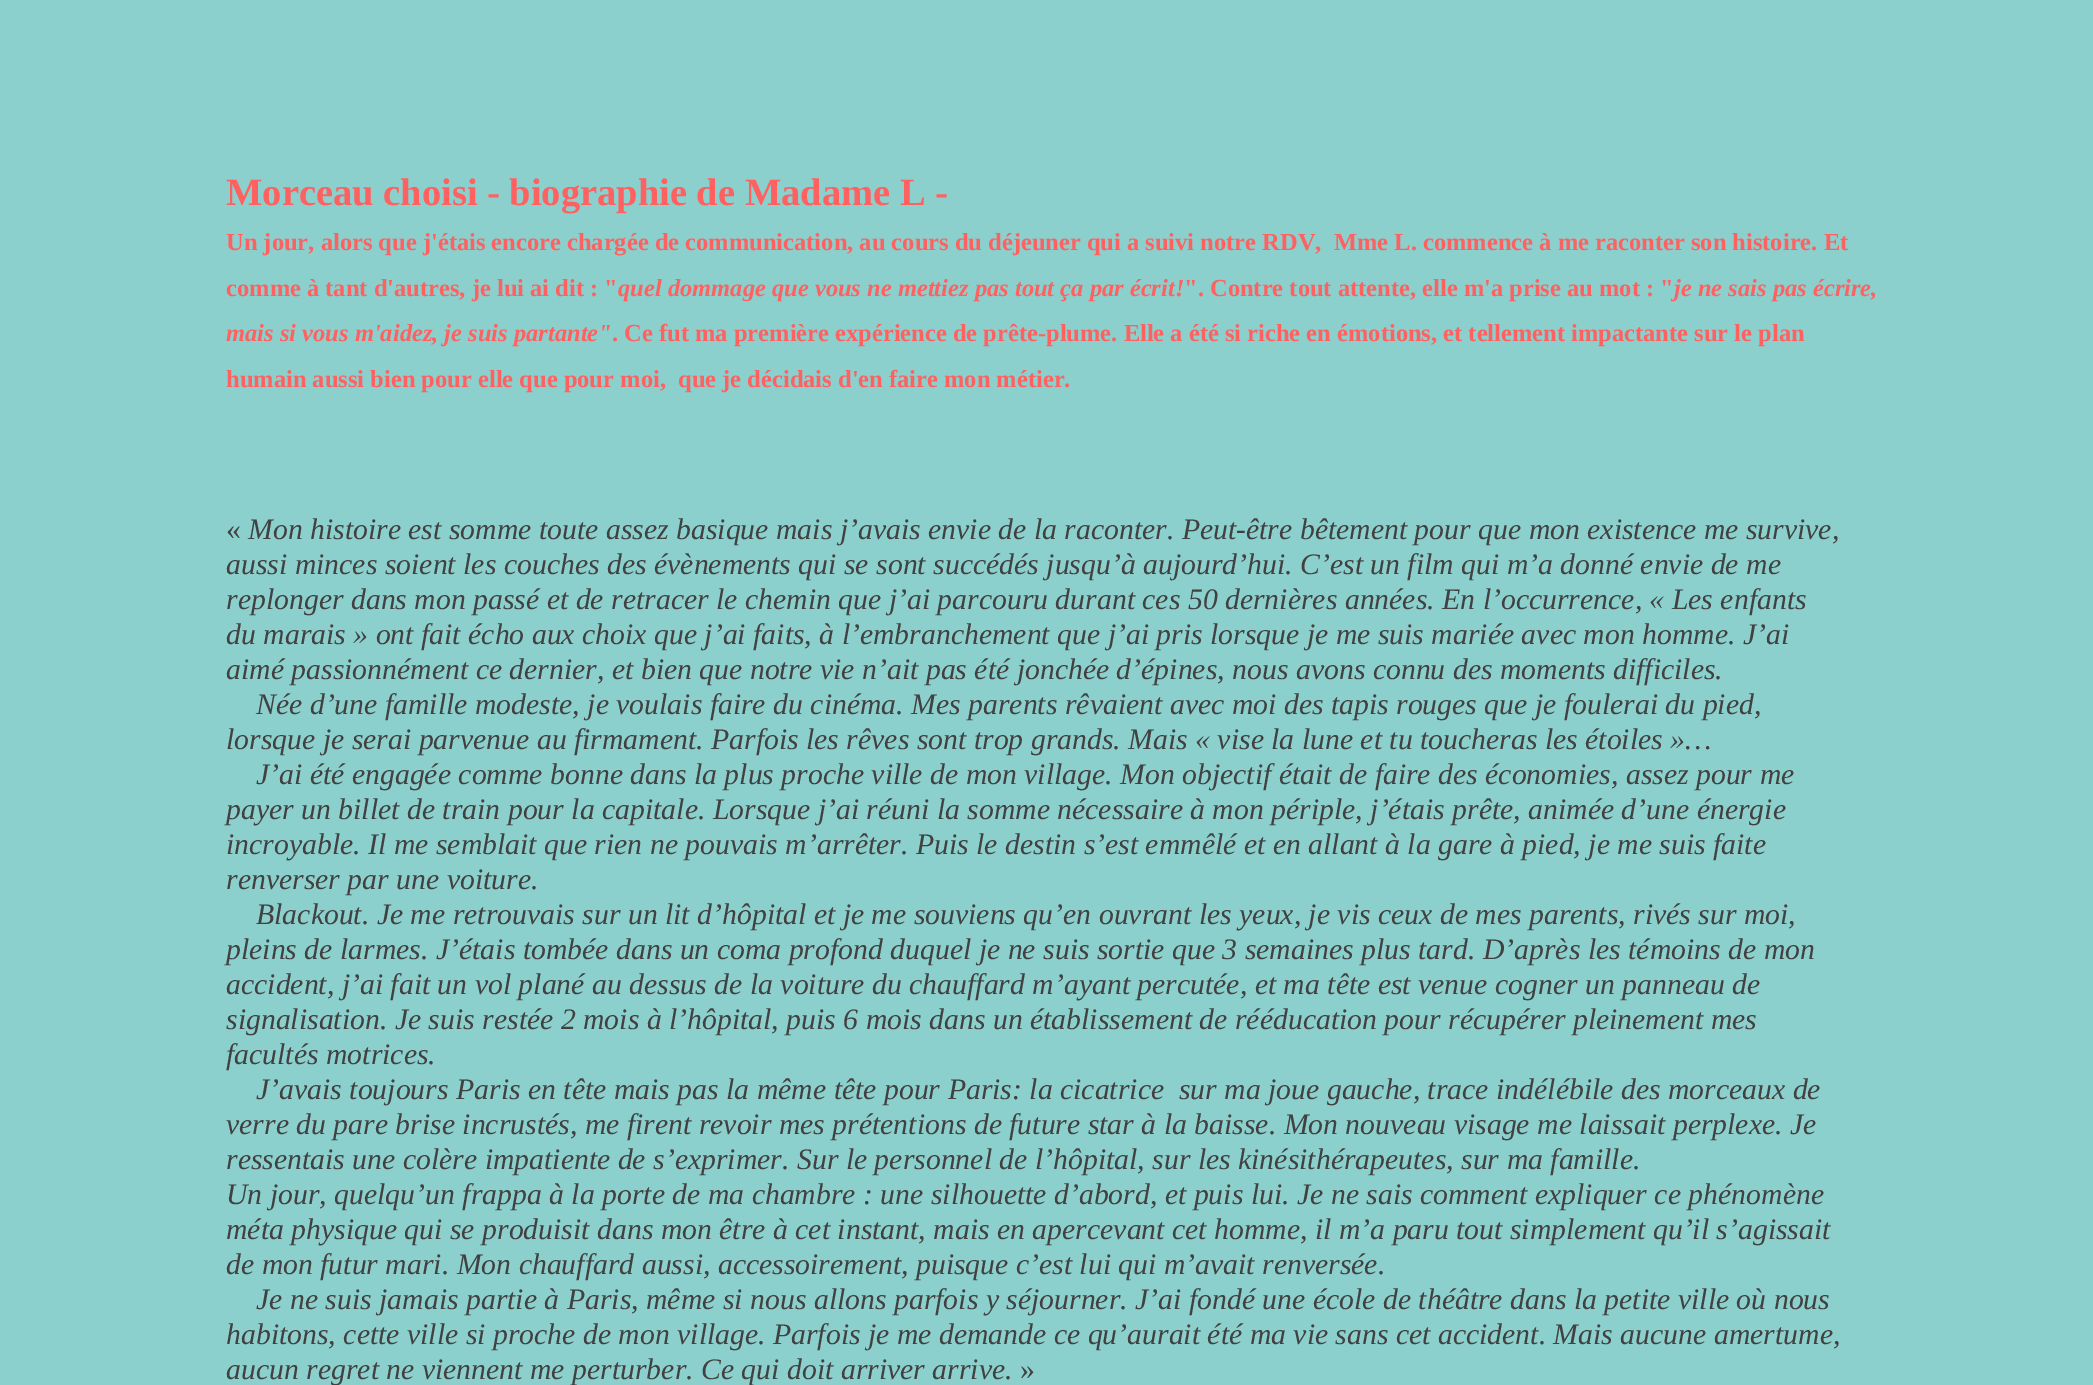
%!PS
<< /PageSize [2093 1385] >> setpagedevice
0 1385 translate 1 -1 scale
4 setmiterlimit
0.545 0.816 0.804 setrgbcolor
0 0 2093 1385 rectfill
/LiberationSerif-Bold [38.5 0 0 -38.5 0 0] selectfont
1 0.38 0.38 setrgbcolor
226 205 moveto (Morceau choisi - biographie de Madame L -) show
/LiberationSerif-Bold [24.5 0 0 -24.5 0 0] selectfont
226 250 moveto (Un jour, alors que j'étais encore chargée de communication, au cours du déjeuner qui a suivi notre RDV,  Mme L. commence à me raconter son histoire. Et) show
226 296 moveto (comme à tant d'autres, je lui ai dit : ") show
/LiberationSerif-BoldItalic [24.5 0 0 -24.5 0 0] selectfont
618 296 moveto (quel dommage que vous ne mettiez pas tout ça par écrit!) show
/LiberationSerif-Bold [24.5 0 0 -24.5 0 0] selectfont
1184 296 moveto (". Contre tout attente, elle m'a prise au mot : ") show
/LiberationSerif-BoldItalic [24.5 0 0 -24.5 0 0] selectfont
1674 296 moveto (je ne sais pas écrire,) show
226 341 moveto (mais si vous m'aidez, je suis partante") show
/LiberationSerif-Bold [24.5 0 0 -24.5 0 0] selectfont
612 341 moveto (. Ce fut ma première expérience de prête-plume. Elle a été si riche en émotions, et tellement impactante sur le plan) show
226 387 moveto (humain aussi bien pour elle que pour moi,) show
678 387 moveto (que je décidais d'en faire mon métier.) show
/LiberationSerif-Regular [29.75 0 0 -29.75 0 0] selectfont
0.255 setgray
226 539 moveto («) show
/LiberationSerif-Italic [29.75 0 0 -29.75 0 0] selectfont
248 539 moveto (Mon histoire est somme toute assez basique mais j’avais envie de la raconter. Peut-être bêtement pour que mon existence me survive,) show
226 574 moveto (aussi minces soient les couches des évènements qui se sont succédés jusqu’à aujourd’hui. C’est un film qui m’a donné envie de me) show
226 609 moveto (replonger dans mon passé et de retracer le chemin que j’ai parcouru durant ces 50 dernières années. En l’occurrence, « Les enfants) show
226 644 moveto (du marais » ont fait écho aux choix que j’ai faits, à l’embranchement que j’ai pris lorsque je me suis mariée avec mon homme. J’ai) show
226 679 moveto (aimé passionnément ce dernier, et bien que notre vie n’ait pas été jonchée d’épines, nous avons connu des moments difficiles.) show
256 714 moveto (Née d’une famille modeste, je voulais faire du cinéma. Mes parents rêvaient avec moi des tapis rouges que je foulerai du pied,) show
226 749 moveto (lorsque je serai parvenue au firmament. Parfois les rêves sont trop grands. Mais « vise la lune et tu toucheras les étoiles »…) show
256 784 moveto (J’ai été engagée comme bonne dans la plus proche ville de mon village. Mon objectif était de faire des économies, assez pour me) show
226 819 moveto (payer un billet de train pour la capitale. Lorsque j’ai réuni la somme nécessaire à mon périple, j’étais prête, animée d’une énergie) show
226 854 moveto (incroyable. Il me semblait que rien ne pouvais m’arrêter. Puis le destin s’est emmêlé et en allant à la gare à pied, je me suis faite) show
226 889 moveto (renverser par une voiture.) show
256 924 moveto (Blackout. Je me retrouvais sur un lit d’hôpital et je me souviens qu’en ouvrant les yeux, je vis ceux de mes parents, rivés sur moi,) show
226 959 moveto (pleins de larmes. J’étais tombée dans un coma profond duquel je ne suis sortie que 3 semaines plus tard. D’après les témoins de mon) show
226 994 moveto (accident, j’ai fait un vol plané au dessus de la voiture du chauffard m’ayant percutée, et ma tête est venue cogner un panneau de) show
226 1029 moveto (signalisation. Je suis restée 2 mois à l’hôpital, puis 6 mois dans un établissement de rééducation pour récupérer pleinement mes) show
226 1064 moveto (facultés motrices.) show
256 1099 moveto (J’avais toujours Paris en tête mais pas la même tête pour Paris: la cicatrice  sur ma joue gauche, trace indélébile des morceaux de) show
226 1134 moveto (verre du pare brise incrustés, me firent revoir mes prétentions de future star à la baisse. Mon nouveau visage me laissait perplexe. Je) show
226 1169 moveto (ressentais une colère impatiente de s’exprimer. Sur le personnel de l’hôpital, sur les kinésithérapeutes, sur ma famille.) show
226 1204 moveto (Un jour, quelqu’un frappa à la porte de ma chambre : une silhouette d’abord, et puis lui. Je ne sais comment expliquer ce phénomène) show
226 1239 moveto (méta physique qui se produisit dans mon être à cet instant, mais en apercevant cet homme, il m’a paru tout simplement qu’il s’agissait) show
226 1274 moveto (de mon futur mari. Mon chauffard aussi, accessoirement, puisque c’est lui qui m’avait renversée.) show
256 1309 moveto (Je ne suis jamais partie à Paris, même si nous allons parfois y séjourner. J’ai fondé une école de théâtre dans la petite ville où nous) show
226 1344 moveto (habitons, cette ville si proche de mon village. Parfois je me demande ce qu’aurait été ma vie sans cet accident. Mais aucune amertume,) show
226 1379 moveto (aucun regret ne viennent me perturber. Ce qui doit arriver arrive.) show
/LiberationSerif-Regular [29.75 0 0 -29.75 0 0] selectfont
1020 1379 moveto (») show
showpage
